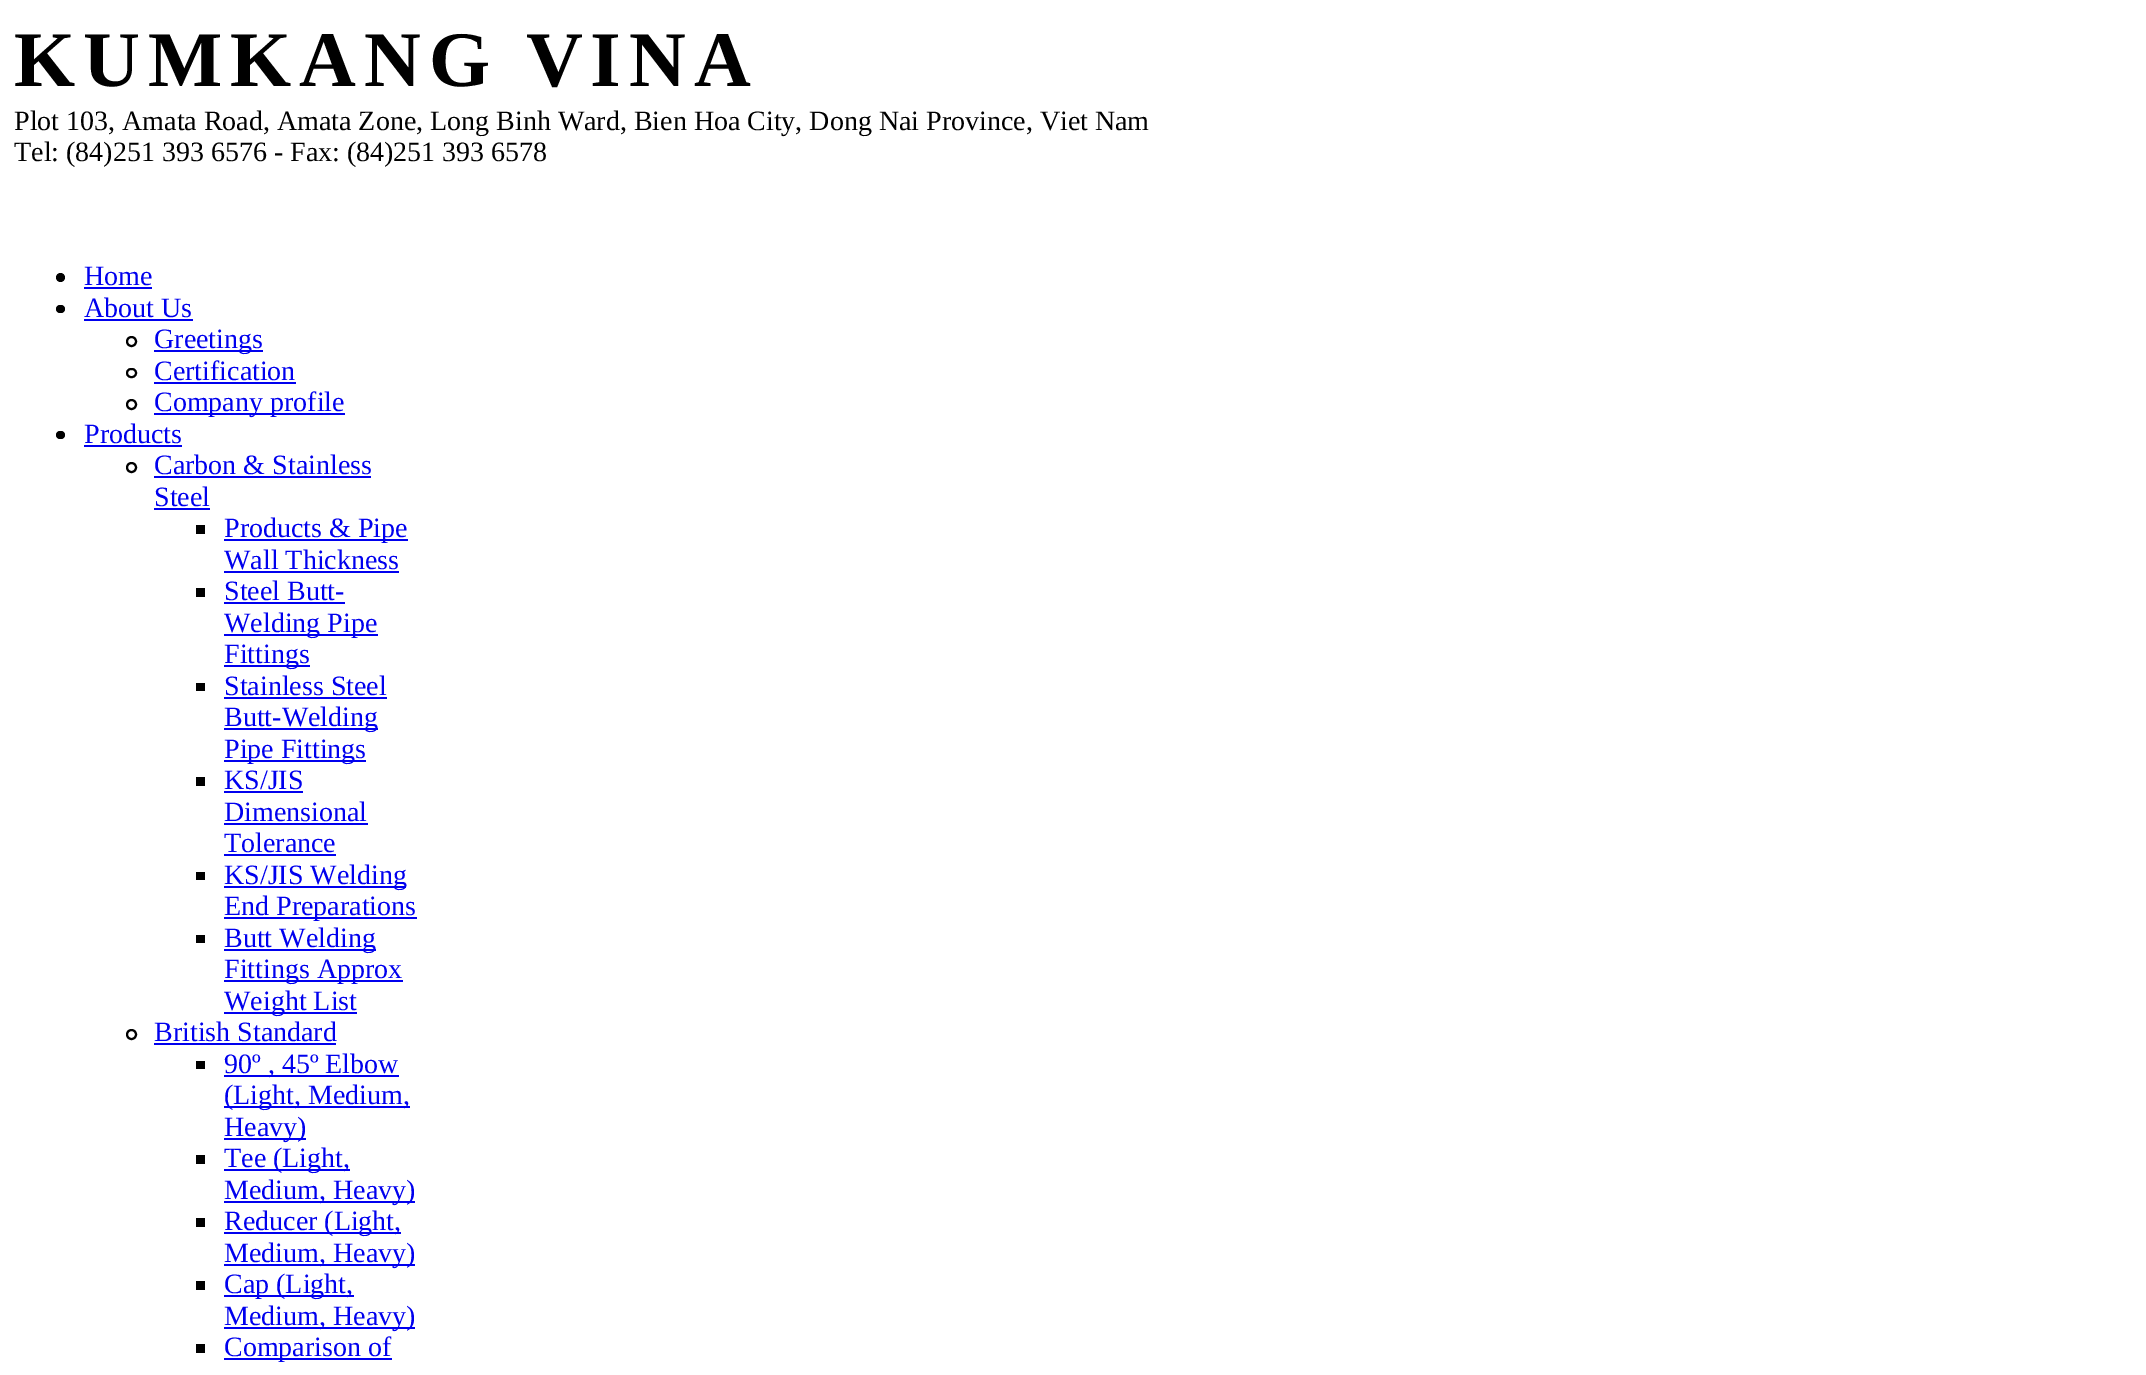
%!PS
<< /PageSize [2146 1375] >> setpagedevice
/roundrect { 5 dict begin { /r /h /w /y /x } { exch def } forall
  x r add y moveto x w add y 2 copy h add r arct x w add y h add x 1 index r arct
  x y h add x y r arct x y 2 copy exch w add exch r arct closepath end } def
0 1375 translate 1 -1 scale
4 setmiterlimit
1 setgray
0 0 2146 1375 rectfill
/LiberationSerif-Bold [78.75 0 0 -78.75 0 0] selectfont
0 setgray
14 86 moveto 7.9 0 (KUMKANG VINA) ashow
/LiberationSerif-Regular [28 0 0 -28 0 0] selectfont
14 130 moveto (Plot 103, Amata Road, Amata Zone, Long Binh Ward, Bien Hoa City, Dong Nai Province, Viet Nam) show
14 161 moveto (Tel: \(84\)251 393 6576 - Fax: \(84\)251 393 6578) show
newpath 60.5 277.5 4.5 0 360 arc closepath fill
0 0 0.933 setrgbcolor
84 285 moveto (Home) show
84 287 68 2 rectfill
0 setgray
56 305 9 8 4 roundrect fill
0 0 0.933 setrgbcolor
84 317 moveto (About Us) show
84 319 109 2 rectfill
0 setgray
2 setlinewidth
newpath 131.5 341.5 4.5 0 360 arc closepath stroke
0 0 0.933 setrgbcolor
154 350 109 2 rectfill
154 348 moveto (Greetings) show
0 setgray
127 369 9 8 4 roundrect stroke
0 0 0.933 setrgbcolor
154 380 moveto (Certification) show
154 382 142 2 rectfill
0 setgray
newpath 131.5 404.5 4.5 0 360 arc closepath stroke
0 0 0.933 setrgbcolor
154 413 191 2 rectfill
154 411 moveto (Company profile) show
0 setgray
56 431 9 8 4 roundrect fill
0 0 0.933 setrgbcolor
84 443 moveto (Products) show
84 445 98 2 rectfill
0 setgray
newpath 131.5 467.5 4.5 0 360 arc closepath stroke
0 0 0.933 setrgbcolor
154 474 moveto (Carbon & Stainless) show
154 476 217 2 rectfill
154 506 moveto (Steel) show
154 508 56 2 rectfill
0 setgray
196 525 9 9 rectfill
0 0 0.933 setrgbcolor
224 539 184 2 rectfill
224 537 moveto (Products & Pipe) show
224 569 moveto (Wall Thickness) show
224 571 175 2 rectfill
0 setgray
196 588 9 9 rectfill
0 0 0.933 setrgbcolor
224 600 moveto (Steel Butt-) show
224 602 121 2 rectfill
224 634 154 2 rectfill
224 632 moveto (Welding Pipe) show
224 665 86 2 rectfill
224 663 moveto (Fittings) show
0 setgray
196 683 9 8 rectfill
0 0 0.933 setrgbcolor
224 695 moveto (Stainless Steel) show
224 697 163 2 rectfill
224 728 154 2 rectfill
224 726 moveto (Butt-Welding) show
224 760 142 2 rectfill
224 758 moveto (Pipe Fittings) show
0 setgray
196 777 9 9 rectfill
0 0 0.933 setrgbcolor
224 789 moveto (KS/JIS) show
224 791 79 2 rectfill
224 821 moveto (Dimensional) show
224 823 144 2 rectfill
224 852 moveto (Tolerance) show
224 854 112 2 rectfill
0 setgray
196 872 9 8 rectfill
0 0 0.933 setrgbcolor
224 886 182 2 rectfill
224 884 moveto (KS/JIS Welding) show
224 917 193 2 rectfill
224 915 moveto (End Preparations) show
0 setgray
196 935 9 8 rectfill
0 0 0.933 setrgbcolor
224 949 152 2 rectfill
224 947 moveto (Butt Welding) show
224 980 179 2 rectfill
224 978 moveto (Fittings Approx) show
224 1012 133 2 rectfill
224 1010 moveto (Weight List) show
0 setgray
newpath 131.5 1034.5 4.5 0 360 arc closepath stroke
0 0 0.933 setrgbcolor
154 1041 moveto (British Standard) show
154 1043 182 2 rectfill
0 setgray
196 1061 9 8 rectfill
0 0 0.933 setrgbcolor
224 1075 175 2 rectfill
224 1073 moveto (90º , 45º Elbow) show
224 1106 186 2 rectfill
224 1104 moveto (\(Light, Medium,) show
224 1138 82 2 rectfill
224 1136 moveto (Heavy\)) show
0 setgray
196 1155 9 9 rectfill
0 0 0.933 setrgbcolor
224 1169 126 2 rectfill
224 1167 moveto (Tee \(Light,) show
224 1201 191 2 rectfill
224 1199 moveto (Medium, Heavy\)) show
0 setgray
196 1218 9 9 rectfill
0 0 0.933 setrgbcolor
224 1232 177 2 rectfill
224 1230 moveto (Reducer \(Light,) show
224 1264 191 2 rectfill
224 1262 moveto (Medium, Heavy\)) show
0 setgray
196 1281 9 9 rectfill
0 0 0.933 setrgbcolor
224 1295 130 2 rectfill
224 1293 moveto (Cap \(Light,) show
224 1327 191 2 rectfill
224 1325 moveto (Medium, Heavy\)) show
0 setgray
196 1344 9 9 rectfill
0 0 0.933 setrgbcolor
224 1358 168 2 rectfill
224 1356 moveto (Comparison of) show
showpage
